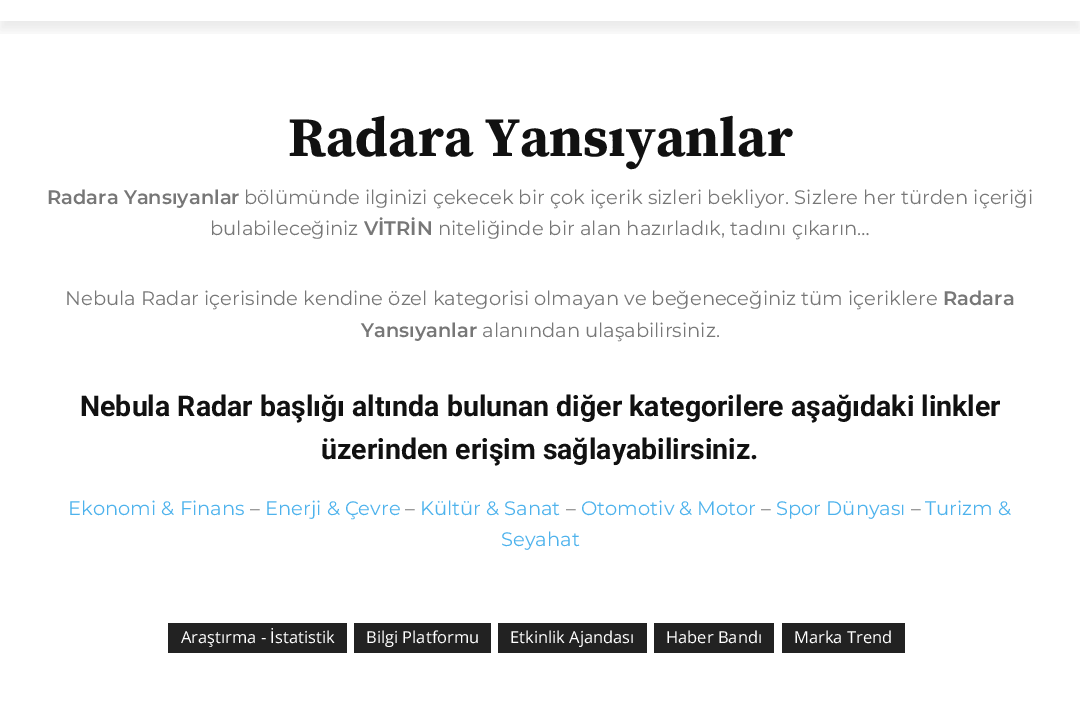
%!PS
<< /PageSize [1080 702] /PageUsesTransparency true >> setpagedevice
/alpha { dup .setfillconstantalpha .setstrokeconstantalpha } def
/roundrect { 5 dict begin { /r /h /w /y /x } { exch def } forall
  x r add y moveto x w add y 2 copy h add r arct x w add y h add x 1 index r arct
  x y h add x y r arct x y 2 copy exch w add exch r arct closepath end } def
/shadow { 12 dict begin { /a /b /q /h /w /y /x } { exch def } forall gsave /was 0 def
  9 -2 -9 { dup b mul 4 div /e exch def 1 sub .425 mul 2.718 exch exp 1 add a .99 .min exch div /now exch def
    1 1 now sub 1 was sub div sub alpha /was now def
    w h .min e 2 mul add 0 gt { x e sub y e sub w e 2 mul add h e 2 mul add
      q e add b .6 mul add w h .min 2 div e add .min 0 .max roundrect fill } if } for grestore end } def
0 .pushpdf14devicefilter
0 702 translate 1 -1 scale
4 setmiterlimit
1 setgray
0 0 1080 702 rectfill
gsave
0 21 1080 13 rectclip
0 setgray
0 -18 1080 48 0 6 0.08 shadow
grestore
/SourceSerifPro-Bold [55.5 0 0 -55.5 0 0] selectfont
0.067 setgray
288 156 moveto (Radara Yansıyanlar) show
/Montserrat-SemiBold [19.5 0 0 -19.5 0 0] selectfont
0.467 setgray
47 204 moveto (Radara Yansıyanlar) show
/Montserrat-Regular [19.5 0 0 -19.5 0 0] selectfont
244 204 moveto (bölümünde ilginizi çekecek bir çok içerik sizleri bekliyor. Sizlere her türden içeriği) show
210 235 moveto (bulabileceğiniz) show
/Montserrat-SemiBold [19.5 0 0 -19.5 0 0] selectfont
364 235 moveto (VİTRİN) show
/Montserrat-Regular [19.5 0 0 -19.5 0 0] selectfont
438 235 moveto (niteliğinde bir alan hazırladık, tadını çıkarın…) show
65 305 moveto (Nebula Radar içerisinde kendine özel kategorisi olmayan ve beğeneceğiniz tüm içeriklere) show
/Montserrat-SemiBold [19.5 0 0 -19.5 0 0] selectfont
943 305 moveto (Radara) show
361 337 moveto (Yansıyanlar) show
/Montserrat-Regular [19.5 0 0 -19.5 0 0] selectfont
482 337 moveto (alanından ulaşabilirsiniz.) show
/Roboto-Bold [28.5 0 0 -28.5 0 0] selectfont
0.067 setgray
80 416 moveto (Nebula Radar başlığı altında bulunan diğer kategorilere aşağıdaki linkler) show
321 459 moveto (üzerinden erişim sağlayabilirsiniz.) show
/Montserrat-Regular [19.5 0 0 -19.5 0 0] selectfont
0.302 0.698 0.925 setrgbcolor
68 515 moveto (Ekonomi & Finans) show
0.467 setgray
250 515 moveto (–) show
0.302 0.698 0.925 setrgbcolor
265 515 moveto (Enerji & Çevre) show
0.467 setgray
405 515 moveto (–) show
0.302 0.698 0.925 setrgbcolor
420 515 moveto (Kültür & Sanat) show
0.467 setgray
566 515 moveto (–) show
0.302 0.698 0.925 setrgbcolor
581 515 moveto (Otomotiv & Motor) show
0.467 setgray
761 515 moveto (–) show
0.302 0.698 0.925 setrgbcolor
776 515 moveto (Spor Dünyası) show
0.467 setgray
911 515 moveto (–) show
0.302 0.698 0.925 setrgbcolor
925 515 moveto (Turizm &) show
501 546 moveto (Seyahat) show
0.133 setgray
168 623 179 30 rectfill
/OpenSans-Regular [16.5 0 0 -16.5 0 0] selectfont
1 setgray
181 643 moveto (Araştırma - İstatistik) show
0.133 setgray
354 623 137 30 rectfill
1 setgray
366 643 moveto (Bilgi Platformu) show
0.133 setgray
498 623 149 30 rectfill
1 setgray
510 643 moveto (Etkinlik Ajandası) show
0.133 setgray
654 623 120 30 rectfill
1 setgray
666 643 moveto (Haber Bandı) show
0.133 setgray
782 623 123 30 rectfill
1 setgray
794 643 moveto (Marka Trend) show
.poppdf14devicefilter showpage
